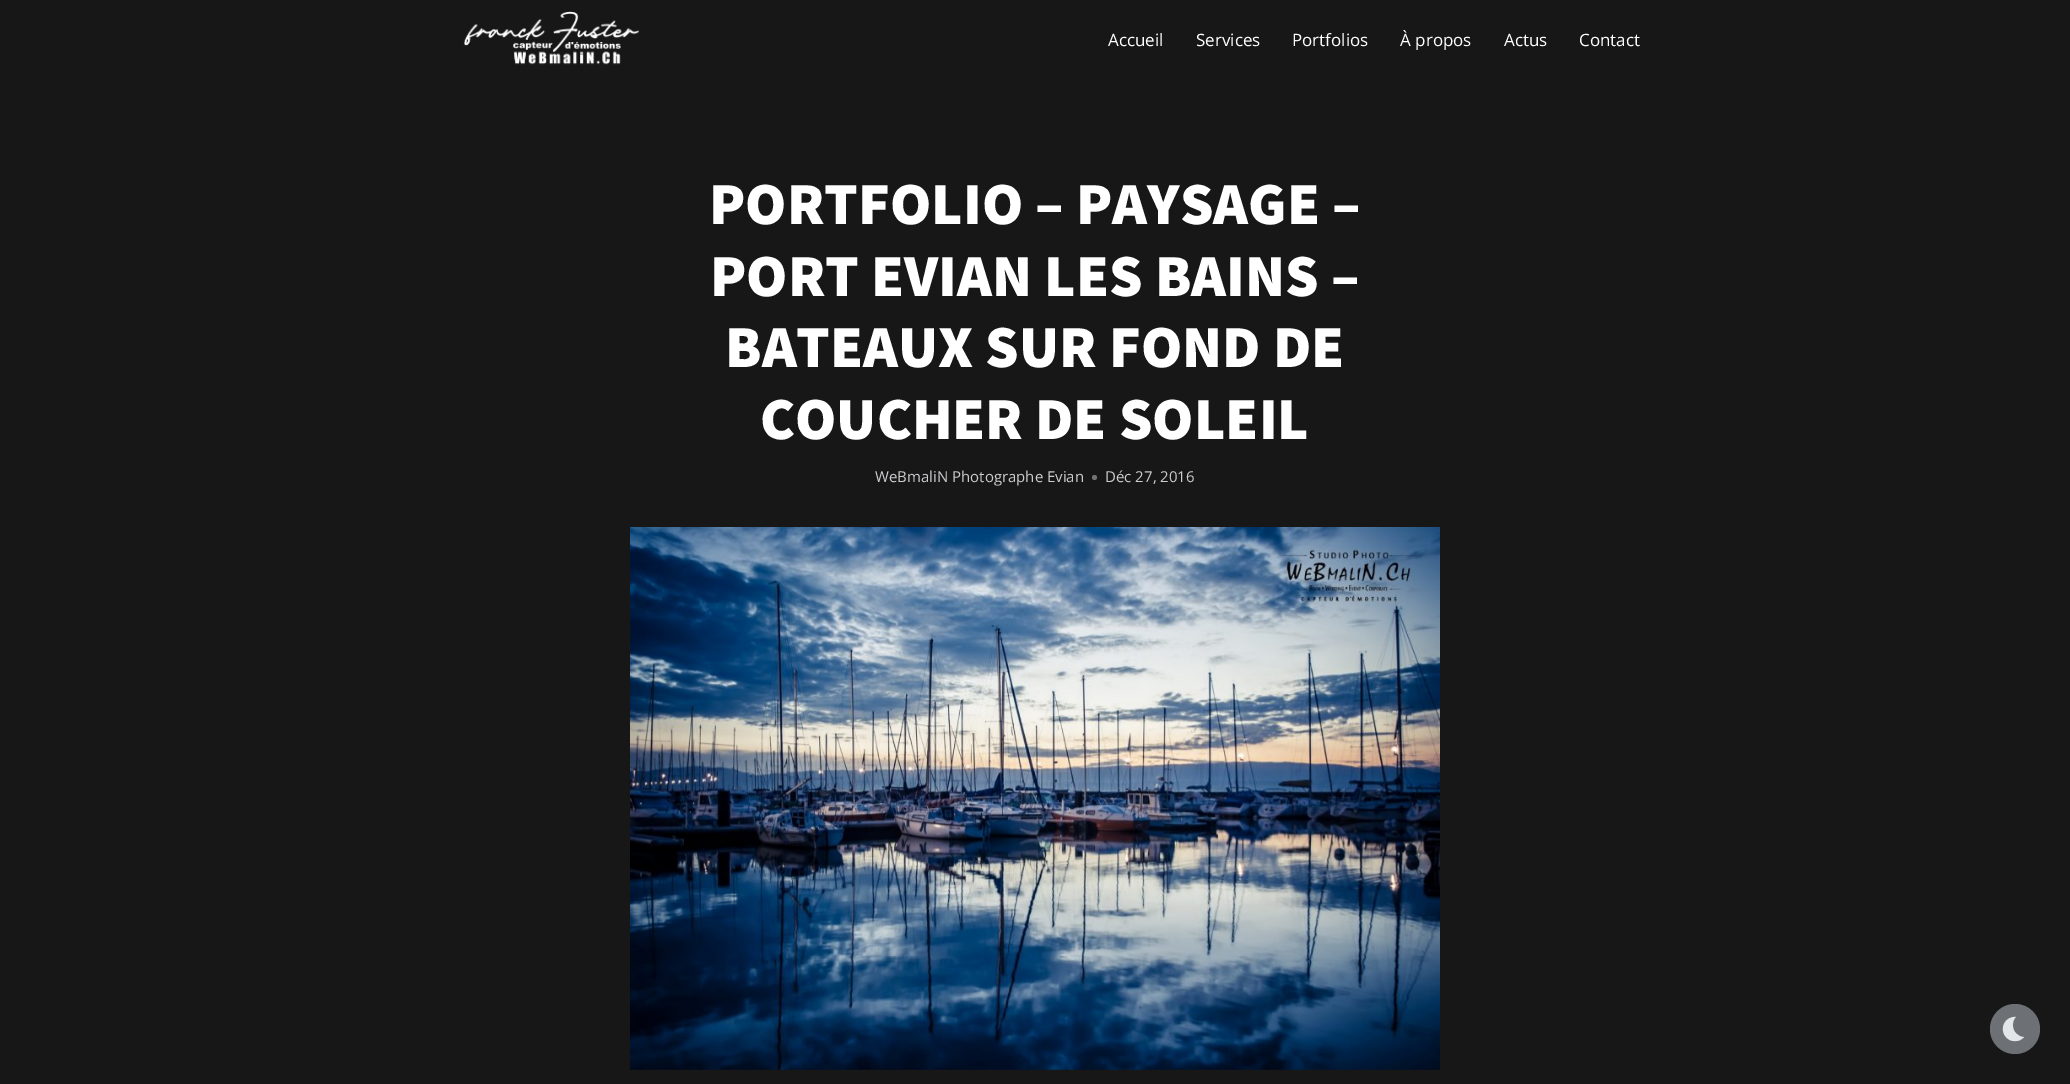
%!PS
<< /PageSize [2070 1084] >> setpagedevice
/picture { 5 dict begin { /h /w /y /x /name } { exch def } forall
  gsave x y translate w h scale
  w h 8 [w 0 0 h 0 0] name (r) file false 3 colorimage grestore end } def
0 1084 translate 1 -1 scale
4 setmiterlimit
0.09 setgray
0 0 2070 1084 rectfill
(img1.rgb) 463 11 177 54 picture
/OpenSans-Regular [17 0 0 -17 0 0] selectfont
1 setgray
1108 46 moveto (Accueil) show
1196 46 moveto (Services) show
1292 46 moveto (Portfolios) show
1400 46 moveto (À propos) show
1504 46 moveto (Actus) show
1579 46 moveto (Contact) show
/Assistant-ExtraBold [59.75 0 0 -59.75 0 0] selectfont
709 224 moveto (PORTFOLIO – PAYSAGE –) show
710 296 moveto (PORT EVIAN LES BAINS –) show
725 367 moveto (BATEAUX SUR FOND DE) show
760 439 moveto (COUCHER DE SOLEIL) show
/OpenSans-Regular [15 0 0 -15 0 0] selectfont
0.804 0.804 0.816 setrgbcolor
875 482 moveto (WeBmaliN Photographe Evian) show
0.447 0.447 0.455 setrgbcolor
newpath 1094.5 477.5 2.5 0 360 arc closepath fill
0.804 0.804 0.816 setrgbcolor
1105 482 moveto (Déc 27, 2016) show
(img2.rgb) 630 527 810 543 picture
0.427 0.439 0.455 setrgbcolor
newpath 2015 1029 25 0 360 arc closepath fill
(img3.rgb) 2002 1016 23 26 picture
showpage
